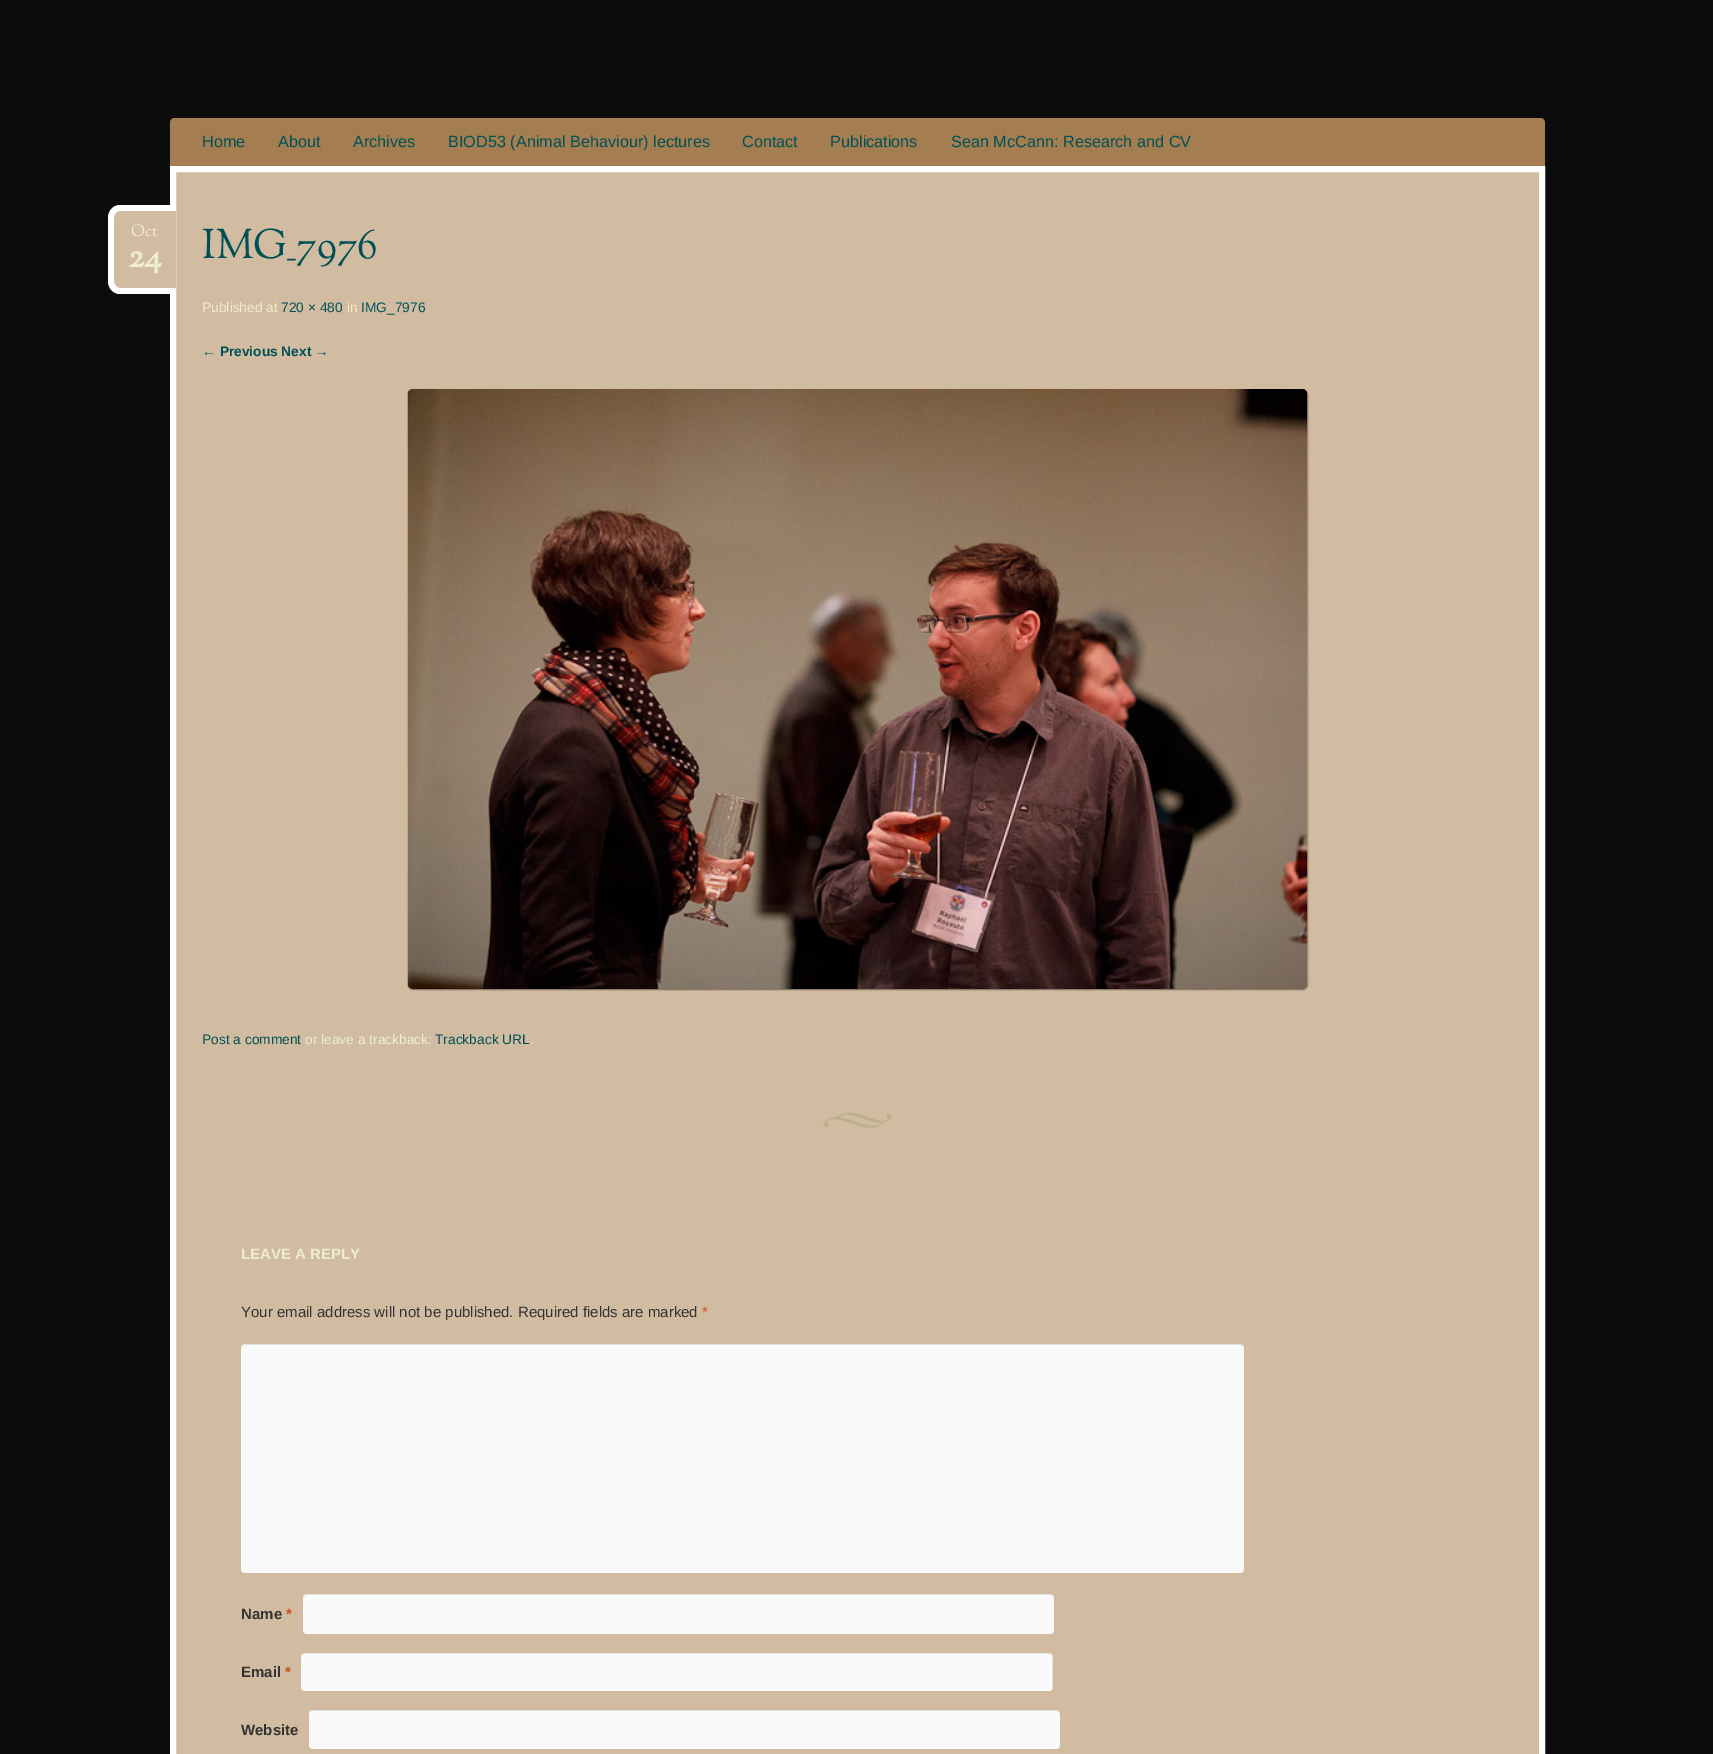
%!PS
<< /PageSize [1713 1754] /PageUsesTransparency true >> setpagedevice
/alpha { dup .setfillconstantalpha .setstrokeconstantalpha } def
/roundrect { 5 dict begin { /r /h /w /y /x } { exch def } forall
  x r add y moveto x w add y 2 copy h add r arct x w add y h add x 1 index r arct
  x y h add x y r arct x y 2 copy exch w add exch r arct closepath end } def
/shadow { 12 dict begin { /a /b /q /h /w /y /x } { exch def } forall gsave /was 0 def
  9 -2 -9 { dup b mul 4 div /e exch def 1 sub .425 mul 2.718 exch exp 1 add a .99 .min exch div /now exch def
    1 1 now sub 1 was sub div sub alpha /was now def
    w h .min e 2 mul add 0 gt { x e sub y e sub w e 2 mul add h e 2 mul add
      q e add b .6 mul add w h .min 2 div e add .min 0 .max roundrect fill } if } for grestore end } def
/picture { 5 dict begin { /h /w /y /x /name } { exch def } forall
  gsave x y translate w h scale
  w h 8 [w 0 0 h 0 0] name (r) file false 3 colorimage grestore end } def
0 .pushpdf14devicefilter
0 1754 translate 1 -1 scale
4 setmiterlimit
0.051 0.047 0.047 setrgbcolor
0 0 1713 1754 rectfill
0.643 0.494 0.314 setrgbcolor
newpath 175 118 moveto 1540 118 lineto 1543 118 1545 120 1545 123 curveto 1545 166 lineto 170 166 lineto 170 123 lineto 170 120 172 118 175 118 curveto closepath fill
/LiberationSans-Regular [16.25 0 0 -16.25 0 0] selectfont
0 0.314 0.337 setrgbcolor
202 147 moveto (Home) show
278 147 moveto (About) show
353 147 moveto (Archives) show
448 147 moveto (BIOD53 \(Animal Behaviour\) lectures) show
742 147 moveto (Contact) show
830 147 moveto (Publications) show
951 147 moveto (Sean McCann: Research and CV) show
0.82 0.733 0.631 setrgbcolor
newpath 173 169 moveto 1542 169 lineto 1542 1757 lineto 173 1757 lineto closepath gsave fill grestore
1 setgray
6 setlinewidth
stroke
(img1.rgb) 823 1112 69 16 picture
0.82 0.733 0.631 setrgbcolor
newpath 120 211 moveto 176 211 lineto 176 288 lineto 120 288 lineto 116.5 288 114 285.5 114 282 curveto 114 217 lineto 114 213.5 116.5 211 120 211 curveto closepath fill
1 setgray
newpath 120 205 moveto 176 205 lineto 176 294 lineto 120 294 lineto 113 294 108 288 108 281 curveto 108 218 lineto 108 211 113 205 120 205 curveto closepath 120 211 moveto 176 211 lineto 176 288 lineto 120 288 lineto 117 288 114 285 114 281 curveto 114 218 lineto 114 214 117 211 120 211 curveto closepath eofill
/SortsMillGoudy-Regular [16.25 0 0 -16.25 0 0] selectfont
0.937 0.933 0.8 setrgbcolor
131 236 moveto (Oct) show
/SortsMillGoudy-Bold [35 0 0 -35 0 0] selectfont
128 267 moveto (24) show
/SortsMillGoudy-Regular [41.25 0 0 -41.25 0 0] selectfont
0 0.314 0.337 setrgbcolor
202 258 moveto (IMG_7976) show
/LiberationSans-Regular [13.75 0 0 -13.75 0 0] selectfont
0.937 0.933 0.8 setrgbcolor
202 312 moveto (Published at) show
0 0.314 0.337 setrgbcolor
281 312 moveto (720 × 480) show
0.937 0.933 0.8 setrgbcolor
347 312 moveto (in) show
0 0.314 0.337 setrgbcolor
361 312 moveto (IMG_7976) show
/LiberationSans-Bold [13.75 0 0 -13.75 0 0] selectfont
202 356 moveto (← Previous Next →) show
0 setgray
408 390 900 600 5 0.5 0.4 shadow
(img2.rgb) 407 389 901 600 picture
/LiberationSans-Regular [13.75 0 0 -13.75 0 0] selectfont
0 0.314 0.337 setrgbcolor
202 1044 moveto (Post a comment) show
0.937 0.933 0.8 setrgbcolor
305 1044 moveto (or leave a trackback:) show
0 0.314 0.337 setrgbcolor
435 1044 moveto (Trackback URL) show
0.937 0.933 0.8 setrgbcolor
530 1044 moveto (.) show
/LiberationSans-Bold [15 0 0 -15 0 0] selectfont
241 1259 moveto (LEAVE A REPLY) show
/LiberationSans-Regular [15 0 0 -15 0 0] selectfont
0.2 setgray
241 1317 moveto (Your email address will not be published. Required fields are marked) show
0.8 0.302 0.133 setrgbcolor
702 1317 moveto (*) show
0.98 setgray
241 1344 1003 229 4 roundrect fill
0.1 alpha
0 setgray
newpath 245 1345 moveto 1240 1345 lineto 1242 1345 1244 1347 1244 1349 curveto 1244 1346 1243 1344 1240 1344 curveto 245 1344 lineto 242 1344 241 1346 241 1349 curveto 241 1347 243 1345 245 1345 curveto closepath fill
/LiberationSans-Bold [15 0 0 -15 0 0] selectfont
1 alpha
0.2 setgray
241 1619 moveto (Name) show
0.8 0.302 0.133 setrgbcolor
286 1619 moveto (*) show
0.98 setgray
303 1594 751 40 4 roundrect fill
0.1 alpha
0 setgray
newpath 306 1595 moveto 1050 1595 lineto 1052 1595 1054 1597 1054 1599 curveto 1054 1598 lineto 1054 1596 1052 1594 1050 1594 curveto 307 1594 lineto 306 1594 304 1595 304 1596 curveto closepath fill
1 alpha
0.2 setgray
241 1677 moveto (Email) show
0.8 0.302 0.133 setrgbcolor
285 1677 moveto (*) show
0.98 setgray
301 1653 752 38 4 roundrect fill
0.1 alpha
0 setgray
newpath 305 1654 moveto 1049 1654 lineto 1051 1654 1052 1655 1052 1658 curveto 1052 1690 lineto 1053 1689 1053 1688 1053 1687 curveto 1053 1657 lineto 1053 1655 1051 1653 1049 1653 curveto 305 1653 lineto 303 1653 301 1655 301 1657 curveto 301 1658 lineto 301 1655 303 1654 305 1654 curveto closepath fill
1 alpha
0.2 setgray
241 1735 moveto (Website) show
0.98 setgray
309 1710 751 39 4 roundrect fill
0.1 alpha
0 setgray
newpath 312 1711 moveto 1056 1711 lineto 1058 1711 1060 1713 1060 1715 curveto 1060 1714 lineto 1060 1712 1058 1710 1056 1710 curveto 313 1710 lineto 311 1710 309 1712 309 1714 curveto 309 1715 lineto 309 1713 310 1711 312 1711 curveto closepath fill
.poppdf14devicefilter showpage
